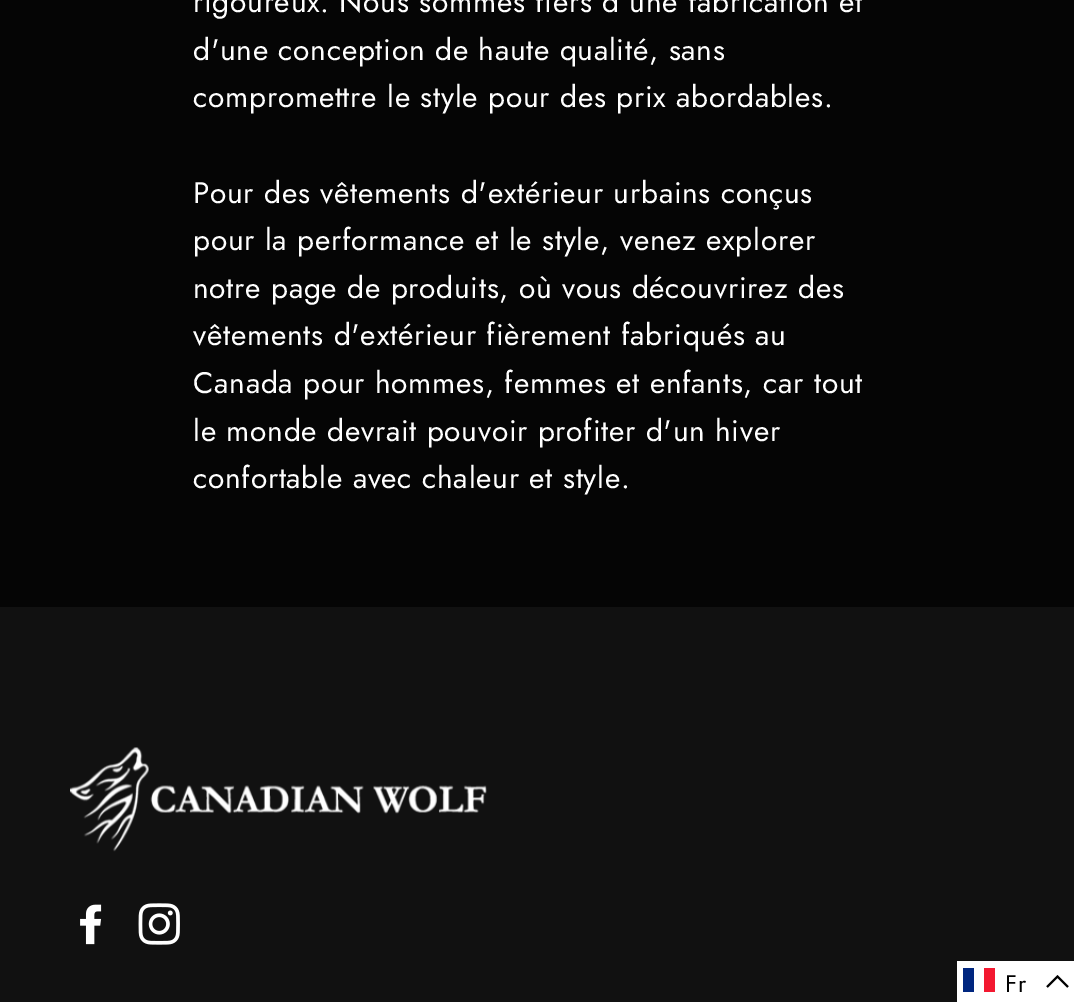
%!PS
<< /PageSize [1074 1002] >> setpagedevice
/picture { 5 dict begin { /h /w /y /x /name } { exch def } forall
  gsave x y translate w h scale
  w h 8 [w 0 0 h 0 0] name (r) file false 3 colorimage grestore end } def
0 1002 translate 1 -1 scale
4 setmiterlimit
0.02 setgray
0 0 1074 1002 rectfill
/Jost-Regular [29.75 0 0 -29.75 0 0] selectfont
1 setgray
193 12 moveto 0.75 0 (rigoureux. Nous sommes fiers d'une fabrication et) ashow
193 60 moveto 0.75 0 (d'une conception de haute qualité, sans) ashow
193 107 moveto 0.75 0 (compromettre le style pour des prix abordables.) ashow
193 203 moveto 0.75 0 (Pour des vêtements d'extérieur urbains conçus) ashow
193 250 moveto 0.75 0 (pour la performance et le style, venez explorer) ashow
193 298 moveto 0.75 0 (notre page de produits, où vous découvrirez des) ashow
193 345 moveto 0.75 0 (vêtements d'extérieur fièrement fabriqués au) ashow
193 393 moveto 0.75 0 (Canada pour hommes, femmes et enfants, car tout) ashow
193 441 moveto 0.75 0 (le monde devrait pouvoir profiter d'un hiver) ashow
193 488 moveto 0.75 0 (confortable avec chaleur et style.) ashow
0.067 setgray
0 607 1074 395 rectfill
(img1.rgb) 70 747 417 105 picture
(img2.rgb) 80 904 22 41 picture
(img3.rgb) 138 903 42 42 picture
1 setgray
957 961 117 41 rectfill
0 0.149 0.498 setrgbcolor
963 968 11 24 rectfill
0.953 0.094 0.188 setrgbcolor
984 968 11 24 rectfill
/Jost-Regular [24 0 0 -24 0 0] selectfont
0 setgray
1005 992 moveto 0.75 0 (Fr) ashow
1.8 setlinewidth
newpath 1068 987 moveto 1057.5 976.5 lineto 1047 987 lineto stroke
showpage
